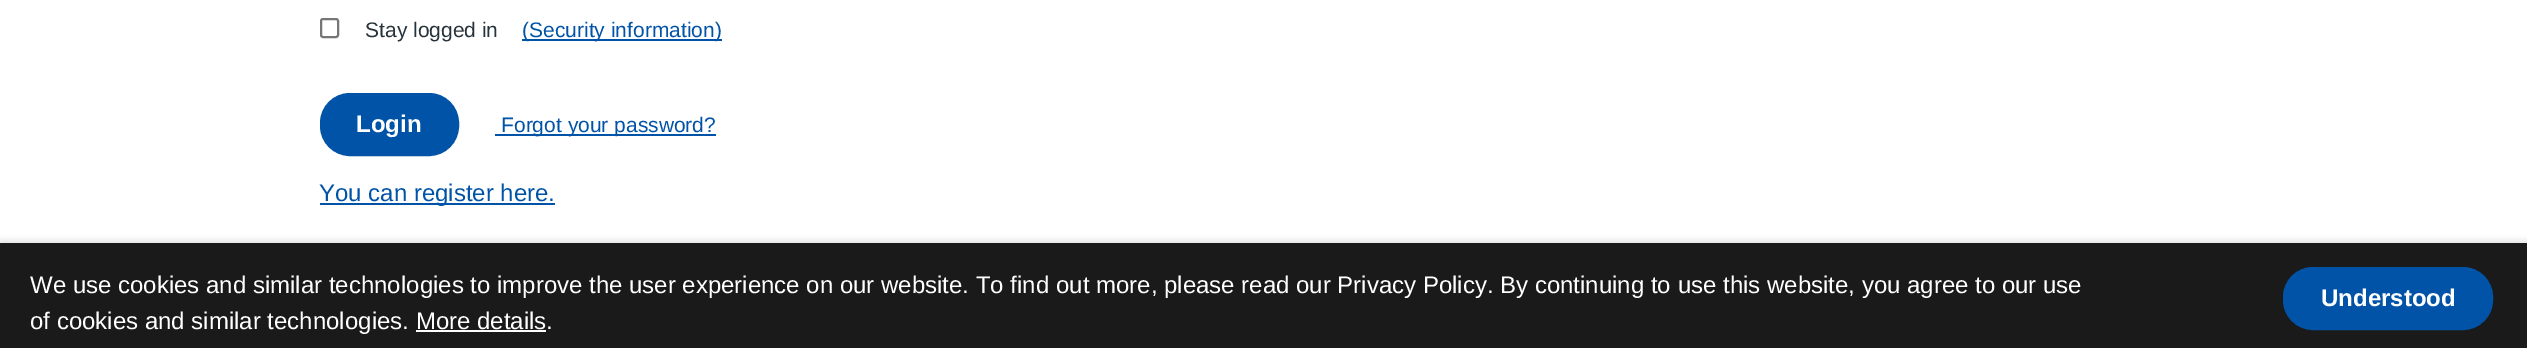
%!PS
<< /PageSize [2527 348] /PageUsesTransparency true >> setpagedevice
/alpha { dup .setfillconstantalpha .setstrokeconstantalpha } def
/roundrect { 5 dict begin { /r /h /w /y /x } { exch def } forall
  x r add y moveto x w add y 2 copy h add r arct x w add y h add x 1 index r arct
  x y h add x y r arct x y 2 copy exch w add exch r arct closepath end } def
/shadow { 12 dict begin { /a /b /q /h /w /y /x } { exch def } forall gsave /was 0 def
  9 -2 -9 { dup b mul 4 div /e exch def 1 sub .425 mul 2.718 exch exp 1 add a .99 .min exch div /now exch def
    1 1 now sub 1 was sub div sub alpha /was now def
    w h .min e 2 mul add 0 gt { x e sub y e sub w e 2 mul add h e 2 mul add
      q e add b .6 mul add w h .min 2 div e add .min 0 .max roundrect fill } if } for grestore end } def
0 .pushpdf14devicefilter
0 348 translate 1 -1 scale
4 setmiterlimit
1 setgray
0 0 2527 348 rectfill
0.463 setgray
2 setlinewidth
321 19 17 18 2 roundrect stroke
/LiberationSans-Regular [21 0 0 -21 0 0] selectfont
0.153 0.2 0.227 setrgbcolor
365 37 moveto (Stay logged in) show
0 0.325 0.651 setrgbcolor
522 39 200 2 rectfill
522 37 moveto (\(Security information\)) show
321 94 137 61 29 roundrect gsave fill grestore
stroke
/LiberationSans-Bold [24 0 0 -24 0 0] selectfont
1 setgray
356 132 moveto (Login) show
0 0.325 0.651 setrgbcolor
495 134 221 2 rectfill
/LiberationSans-Regular [21 0 0 -21 0 0] selectfont
501 132 moveto (Forgot your password?) show
320 203 235 2 rectfill
/LiberationSans-Regular [24 0 0 -24 0 0] selectfont
319 201 moveto (You can register here.) show
0 setgray
0 240 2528 105 0 3 0.1 shadow
0.102 setgray
0 243 2527 105 rectfill
1 setgray
30 293 moveto (We use cookies and similar technologies to improve the user experience on our website. To find out more, please read our Privacy Policy. By continuing to use this website, you agree to our use) show
30 329 moveto (of cookies and similar technologies. More details.) show
416 330 130 2 rectfill
0 0.325 0.651 setrgbcolor
2284 268 208 61 29 roundrect gsave fill grestore
stroke
/LiberationSans-Bold [24 0 0 -24 0 0] selectfont
1 setgray
2321 306 moveto (Understood) show
.poppdf14devicefilter showpage
